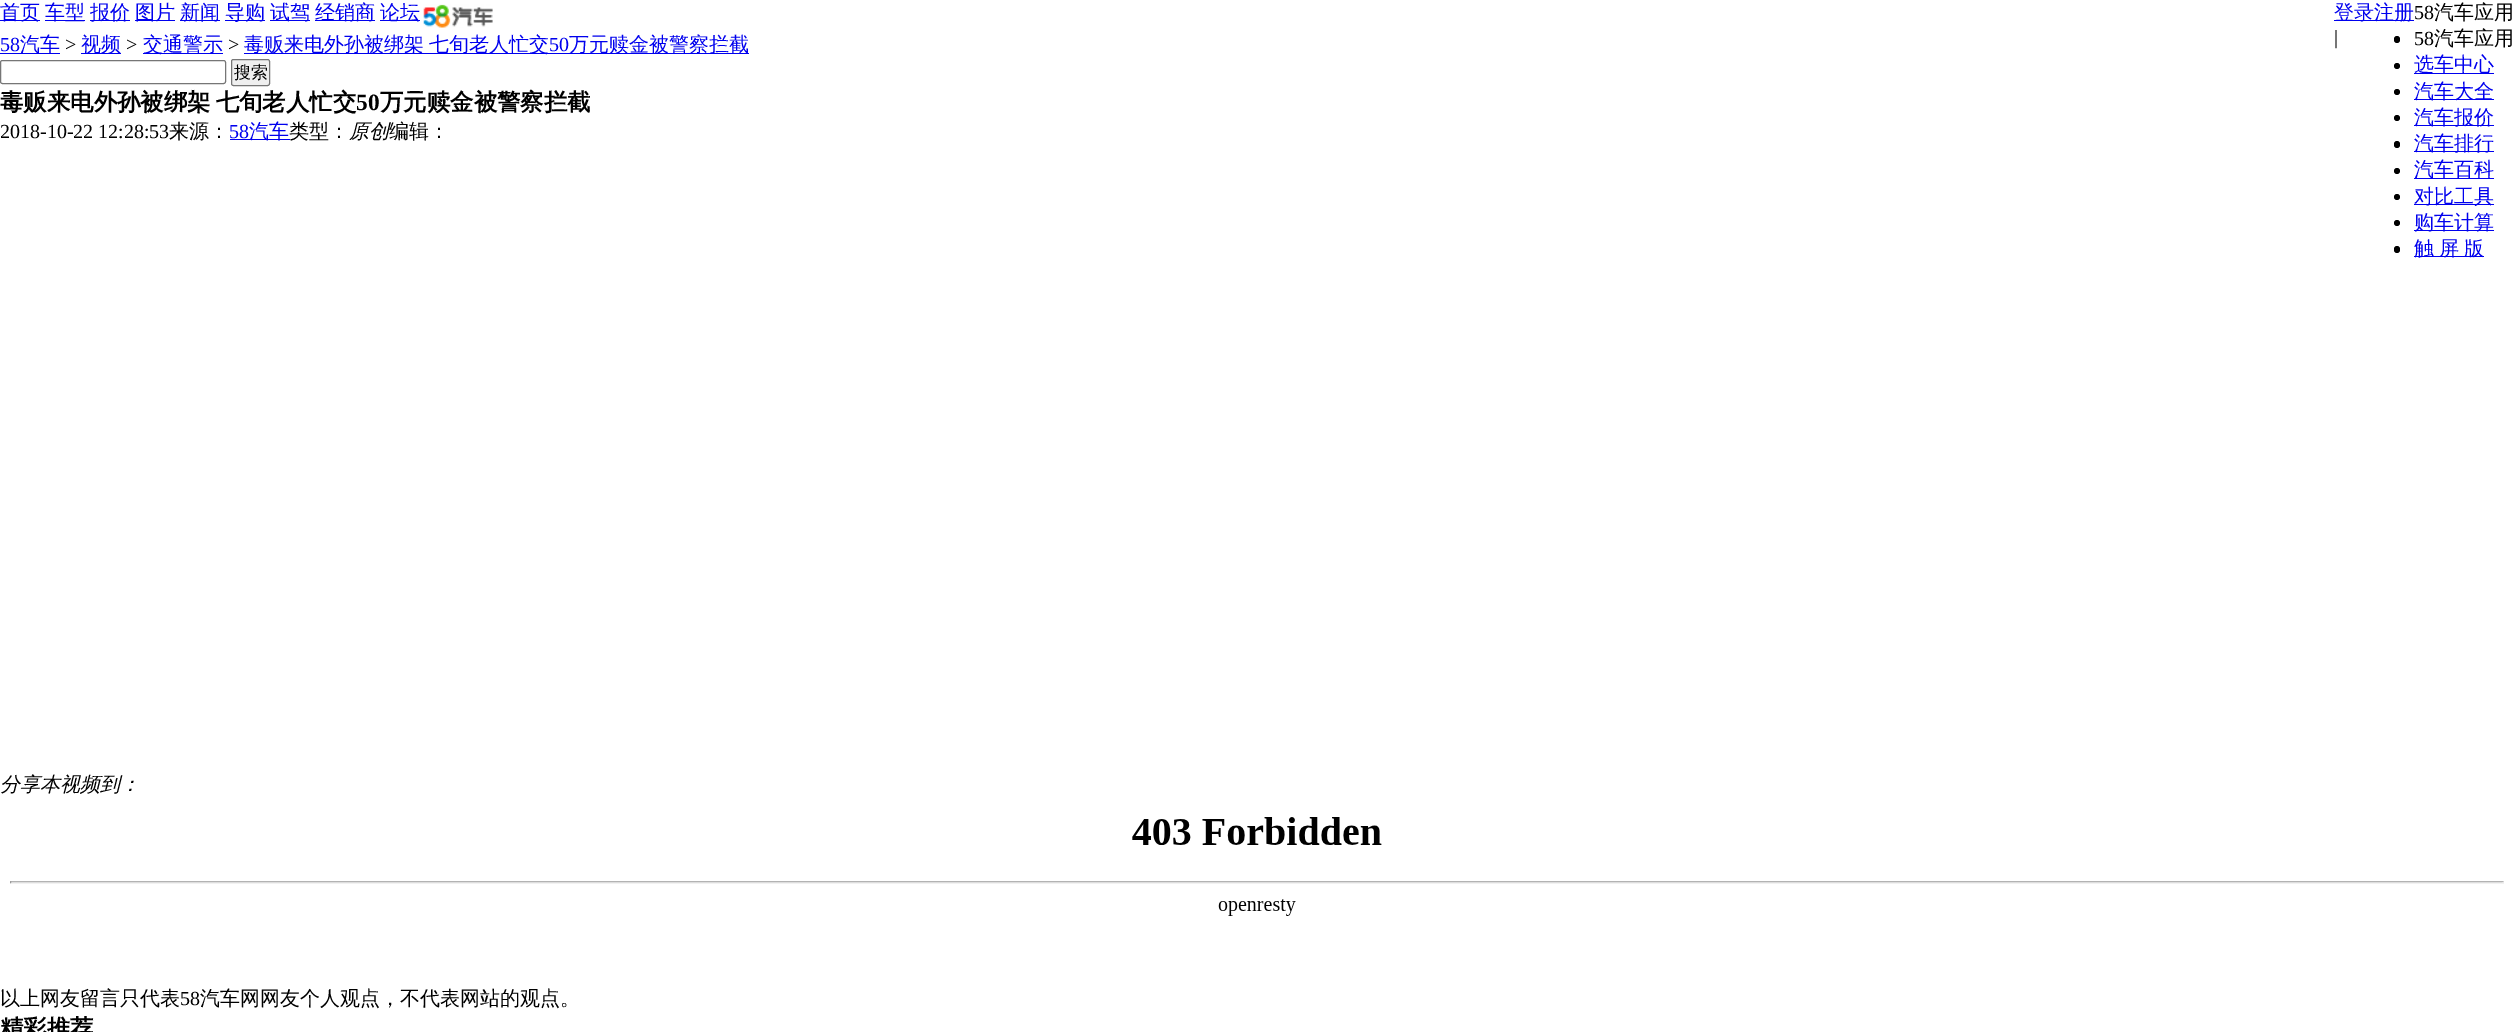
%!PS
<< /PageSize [2513 1032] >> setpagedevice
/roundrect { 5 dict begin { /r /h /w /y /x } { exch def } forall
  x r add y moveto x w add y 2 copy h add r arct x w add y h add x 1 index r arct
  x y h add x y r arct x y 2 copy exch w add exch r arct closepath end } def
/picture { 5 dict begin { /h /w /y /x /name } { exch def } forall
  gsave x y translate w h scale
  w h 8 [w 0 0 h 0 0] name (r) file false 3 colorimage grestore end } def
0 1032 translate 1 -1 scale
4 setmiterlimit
1 setgray
0 0 2513 1032 rectfill
0 0 0.933 setrgbcolor
0 20 40 1 rectfill
/WenQuanYiZenHei-Medium [20 0 0 -20 0 0] selectfont
0 19 moveto (首页) show
45 20 40 1 rectfill
45 19 moveto (车型) show
90 20 40 1 rectfill
90 19 moveto (报价) show
135 20 40 1 rectfill
135 19 moveto (图片) show
180 20 40 1 rectfill
180 19 moveto (新闻) show
225 20 40 1 rectfill
225 19 moveto (导购) show
270 20 40 1 rectfill
270 19 moveto (试驾) show
315 20 60 1 rectfill
315 19 moveto (经销商) show
380 20 40 1 rectfill
380 19 moveto (论坛) show
2334 20 80 1 rectfill
2334 19 moveto (登录注册) show
/LiberationSerif-Regular [20 0 0 -20 0 0] selectfont
0 setgray
2334 44 moveto (|) show
2414 19 moveto (58) show
/WenQuanYiZenHei-Medium [20 0 0 -20 0 0] selectfont
2434 19 moveto (汽车应用) show
2394 36 6 7 3 roundrect fill
/LiberationSerif-Regular [20 0 0 -20 0 0] selectfont
2414 45 moveto (58) show
/WenQuanYiZenHei-Medium [20 0 0 -20 0 0] selectfont
2434 45 moveto (汽车应用) show
newpath 2397 66 3 0 360 arc closepath fill
0 0 0.933 setrgbcolor
2414 73 80 1 rectfill
2414 71 moveto (选车中心) show
0 setgray
newpath 2397 92 3 0 360 arc closepath fill
0 0 0.933 setrgbcolor
2414 99 80 1 rectfill
2414 98 moveto (汽车大全) show
0 setgray
newpath 2397 118 3 0 360 arc closepath fill
0 0 0.933 setrgbcolor
2414 125 80 1 rectfill
2414 124 moveto (汽车报价) show
0 setgray
2394 141 6 7 3 roundrect fill
0 0 0.933 setrgbcolor
2414 151 80 1 rectfill
2414 150 moveto (汽车排行) show
0 setgray
newpath 2397 171 3 0 360 arc closepath fill
0 0 0.933 setrgbcolor
2414 178 80 1 rectfill
2414 176 moveto (汽车百科) show
0 setgray
newpath 2397 197 3 0 360 arc closepath fill
0 0 0.933 setrgbcolor
2414 204 80 1 rectfill
2414 203 moveto (对比工具) show
0 setgray
newpath 2397 223 3 0 360 arc closepath fill
0 0 0.933 setrgbcolor
2414 230 80 1 rectfill
2414 229 moveto (购车计算) show
0 setgray
2394 246 6 7 3 roundrect fill
0 0 0.933 setrgbcolor
2414 256 70 1 rectfill
2414 255 moveto (触) show
2439 255 moveto (屏) show
2464 255 moveto (版) show
(img1.rgb) 423 4 70 24 picture
/LiberationSerif-Regular [20 0 0 -20 0 0] selectfont
0 51 moveto (58) show
0 53 60 1 rectfill
/WenQuanYiZenHei-Medium [20 0 0 -20 0 0] selectfont
20 51 moveto (汽车) show
/LiberationSerif-Regular [20 0 0 -20 0 0] selectfont
0 setgray
65 51 moveto (>) show
0 0 0.933 setrgbcolor
81 53 40 1 rectfill
/WenQuanYiZenHei-Medium [20 0 0 -20 0 0] selectfont
81 51 moveto (视频) show
/LiberationSerif-Regular [20 0 0 -20 0 0] selectfont
0 setgray
126 51 moveto (>) show
0 0 0.933 setrgbcolor
143 53 80 1 rectfill
/WenQuanYiZenHei-Medium [20 0 0 -20 0 0] selectfont
143 51 moveto (交通警示) show
/LiberationSerif-Regular [20 0 0 -20 0 0] selectfont
0 setgray
228 51 moveto (>) show
0 0 0.933 setrgbcolor
244 53 505 1 rectfill
/WenQuanYiZenHei-Medium [20 0 0 -20 0 0] selectfont
244 51 moveto -1 0 32 (毒贩来电外孙被绑架 七旬老人忙交) widthshow
/LiberationSerif-Regular [20 0 0 -20 0 0] selectfont
549 51 moveto (50) show
/WenQuanYiZenHei-Medium [20 0 0 -20 0 0] selectfont
569 51 moveto (万元赎金被警察拦截) show
0.463 setgray
0.5 60.5 225 23 2 roundrect stroke
0.937 setgray
231.5 59.5 38 26 2 roundrect gsave fill grestore
0.463 setgray
stroke
/WenQuanYiZenHei-Medium [17 0 0 -17 0 0] selectfont
0 setgray
234 78 moveto (搜索) show
/WenQuanYiZenHei-Bold [23.4 0 0 -23.4 0 0] selectfont
0 110 moveto -2 0 32 (毒贩来电外孙被绑架 七旬老人忙交) widthshow
/LiberationSerif-Bold [23.4 0 0 -23.4 0 0] selectfont
356 110 moveto (50) show
/WenQuanYiZenHei-Bold [23.4 0 0 -23.4 0 0] selectfont
380 110 moveto (万元赎金被警察拦截) show
/LiberationSerif-Regular [20 0 0 -20 0 0] selectfont
0 138 moveto (2018-10-22 12:28:53) show
/WenQuanYiZenHei-Medium [20 0 0 -20 0 0] selectfont
169 138 moveto (来源：) show
/LiberationSerif-Regular [20 0 0 -20 0 0] selectfont
0 0 0.933 setrgbcolor
229 138 moveto (58) show
230 139 60 1 rectfill
/WenQuanYiZenHei-Medium [20 0 0 -20 0 0] selectfont
249 138 moveto (汽车) show
0 setgray
289 138 moveto (类型：) show
/WenQuanYiZenHei-MediumItalic [20 0 0 -20 0 0] selectfont
349 138 moveto (原创) show
/WenQuanYiZenHei-Medium [20 0 0 -20 0 0] selectfont
389 138 moveto (编辑：) show
/WenQuanYiZenHei-MediumItalic [20 0 0 -20 0 0] selectfont
0 791 moveto (分享本视频到：) show
(img2.rgb) 10 817 2494 99 picture
/WenQuanYiZenHei-Medium [20 0 0 -20 0 0] selectfont
0 1005 moveto (以上网友留言只代表) show
/LiberationSerif-Regular [20 0 0 -20 0 0] selectfont
180 1005 moveto (58) show
/WenQuanYiZenHei-Medium [20 0 0 -20 0 0] selectfont
200 1005 moveto (汽车网网友个人观点，不代表网站的观点。) show
/WenQuanYiZenHei-Bold [23.4 0 0 -23.4 0 0] selectfont
0 1036 moveto (精彩推荐) show
showpage
